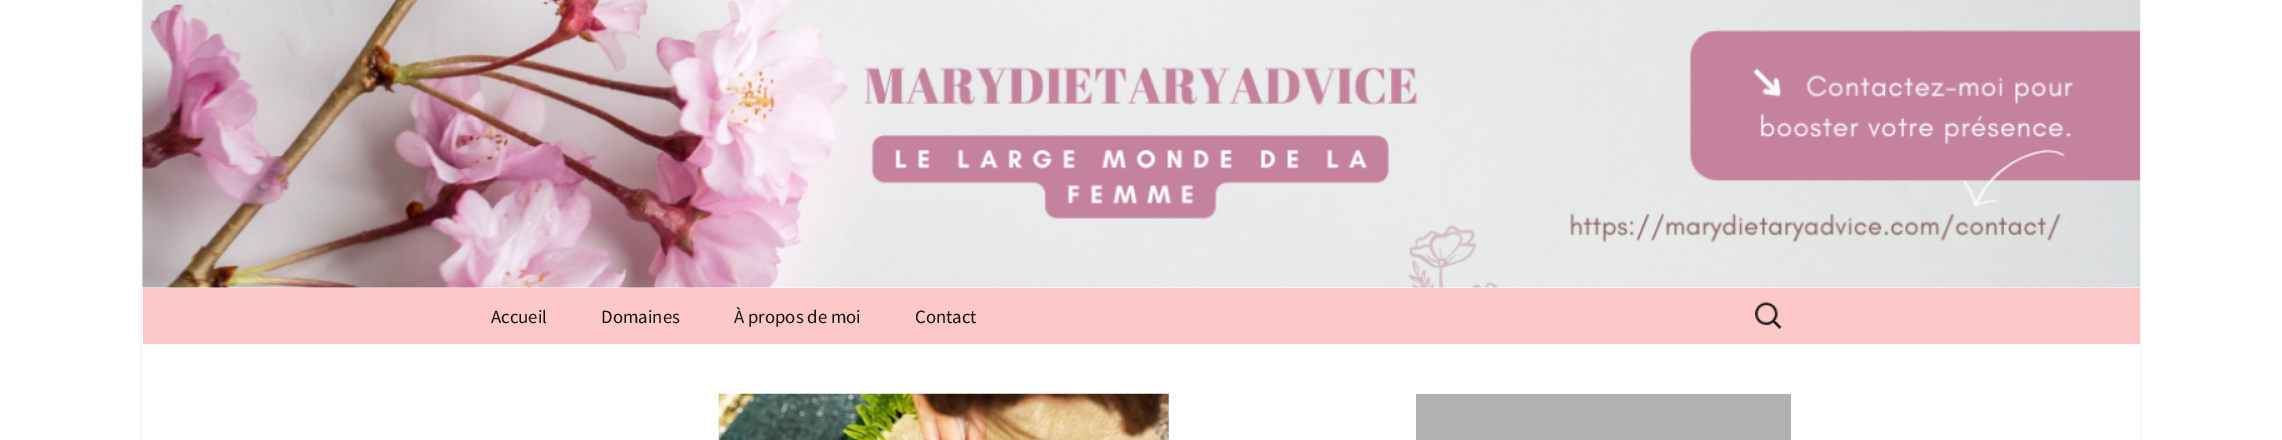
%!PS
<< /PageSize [2282 440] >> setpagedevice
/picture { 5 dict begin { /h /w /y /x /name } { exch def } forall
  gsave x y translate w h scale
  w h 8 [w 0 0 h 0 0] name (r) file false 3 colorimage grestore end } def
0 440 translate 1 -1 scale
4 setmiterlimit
1 setgray
0 0 2282 440 rectfill
0.949 setgray
2140 0 1 440 rectfill
141 0 1 440 rectfill
(img1.rgb) 142 0 1998 288 picture
1 0.784 0.784 setrgbcolor
143 288 1997 56 rectfill
/SourceSansPro-Regular [18.75 0 0 -18.75 0 0] selectfont
0.078 0.078 0.071 setrgbcolor
491 323 moveto (Accueil) show
601 323 moveto (Domaines) show
734 323 moveto (À propos de moi) show
915 323 moveto (Contact) show
(img2.rgb) 1755 302 27 27 picture
(img3.rgb) 718 393 451 47 picture
0.694 setgray
1416 394 375 46 rectfill
showpage
